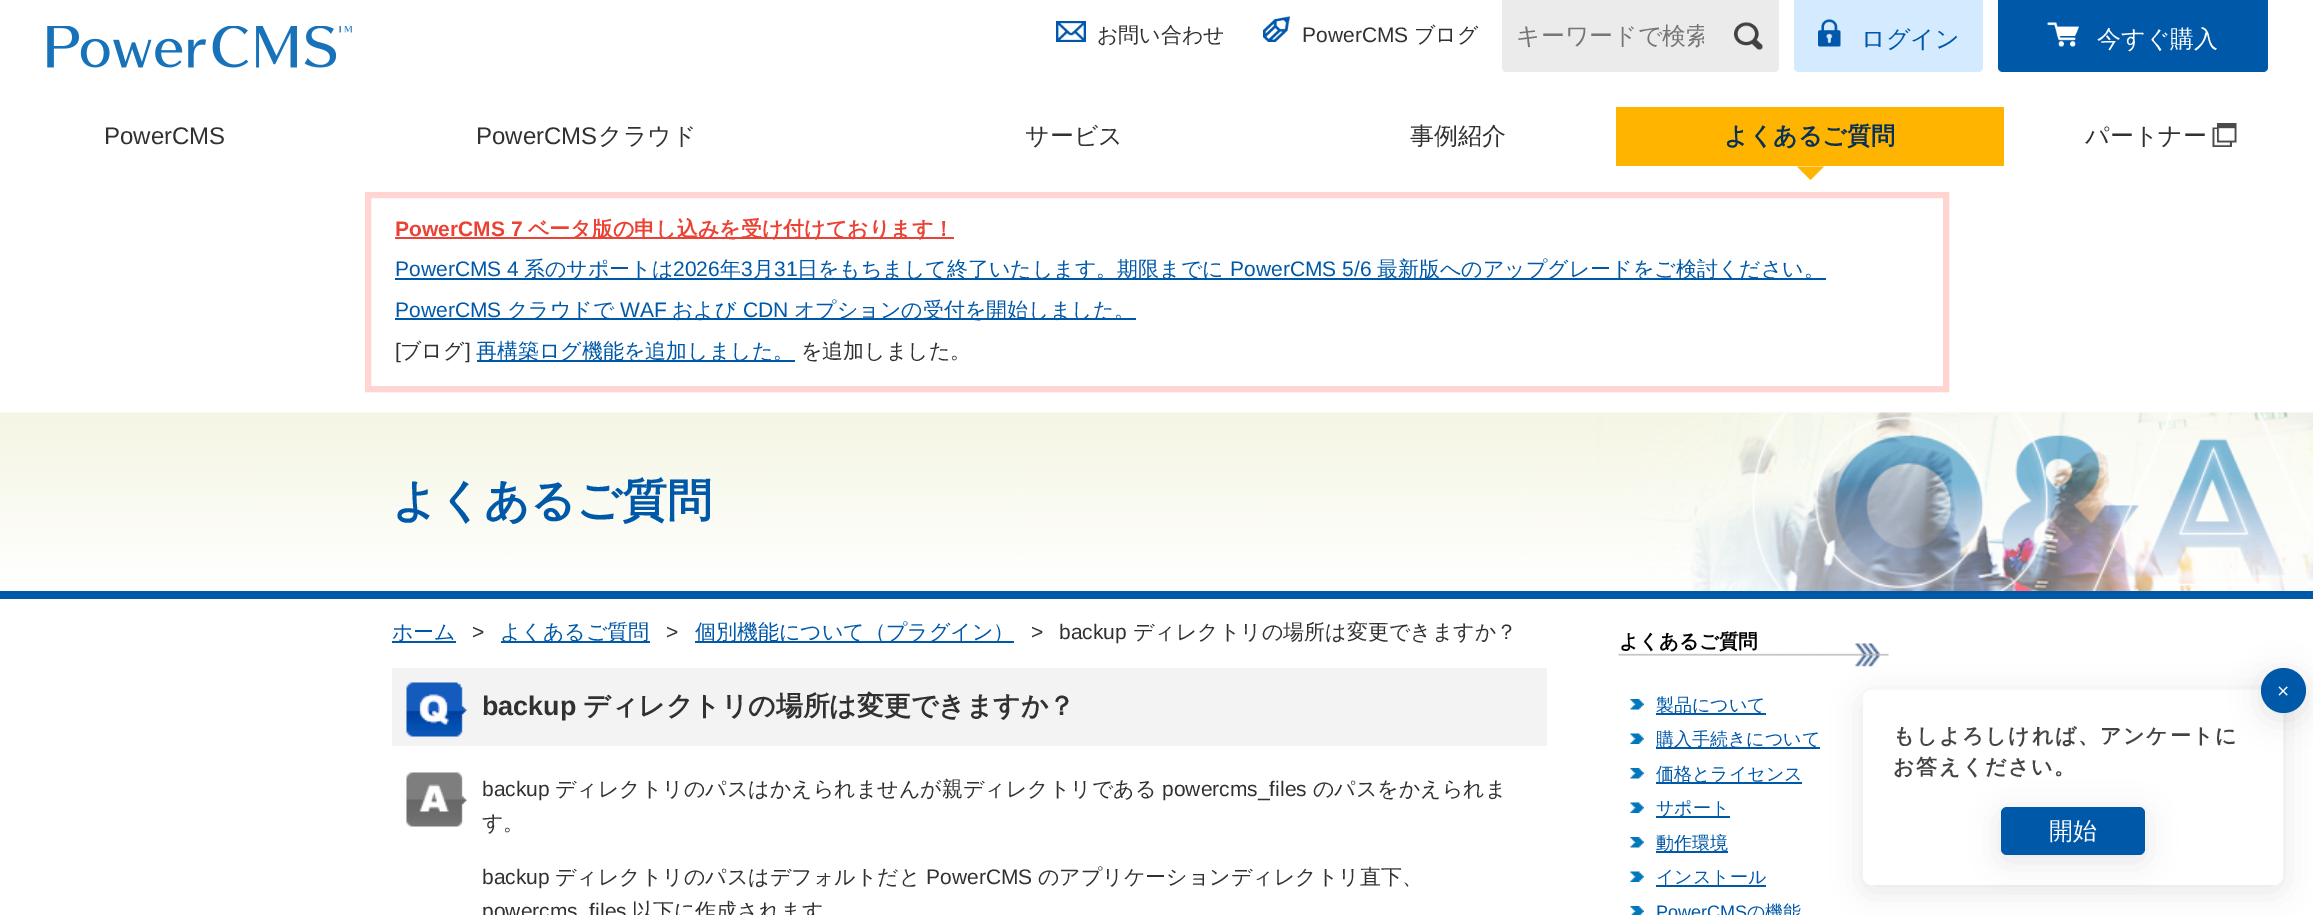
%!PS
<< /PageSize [2313 915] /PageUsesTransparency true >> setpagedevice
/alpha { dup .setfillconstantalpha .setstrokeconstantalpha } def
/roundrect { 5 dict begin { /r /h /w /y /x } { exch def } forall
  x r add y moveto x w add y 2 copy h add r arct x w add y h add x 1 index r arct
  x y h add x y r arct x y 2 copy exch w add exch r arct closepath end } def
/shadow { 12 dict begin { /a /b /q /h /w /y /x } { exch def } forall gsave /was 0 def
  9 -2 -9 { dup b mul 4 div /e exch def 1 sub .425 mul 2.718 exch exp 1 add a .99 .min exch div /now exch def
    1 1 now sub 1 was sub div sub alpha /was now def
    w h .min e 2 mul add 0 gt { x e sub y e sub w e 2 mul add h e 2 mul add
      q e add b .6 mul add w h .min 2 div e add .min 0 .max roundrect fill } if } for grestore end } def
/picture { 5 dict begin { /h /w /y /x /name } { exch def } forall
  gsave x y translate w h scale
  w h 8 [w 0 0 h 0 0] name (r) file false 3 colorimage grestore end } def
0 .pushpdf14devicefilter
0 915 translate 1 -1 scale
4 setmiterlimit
1 setgray
0 0 2313 915 rectfill
(img1.rgb) 47 26 305 42 picture
(img2.rgb) 1056 21 30 21 picture
/WenQuanYiZenHei-Medium [21 0 0 -21 0 0] selectfont
0.192 setgray
1097 42 moveto (お問い合わせ) show
(img3.rgb) 1263 16 27 26 picture
/LiberationSans-Regular [21 0 0 -21 0 0] selectfont
1302 42 moveto (PowerCMS) show
/WenQuanYiZenHei-Medium [21 0 0 -21 0 0] selectfont
1414 42 moveto (ブログ) show
0.922 setgray
newpath 1502 0 moveto 1779 0 lineto 1779 67 lineto 1779 70 1777 72 1774 72 curveto 1507 72 lineto 1504 72 1502 70 1502 67 curveto closepath fill
gsave
1517 21 187 32 rectclip
/WenQuanYiZenHei-Medium [24 0 0 -24 0 0] selectfont
0.459 setgray
1516 44 moveto (キーワードで検索) show
grestore
(img4.rgb) 1734 22 29 28 picture
0.831 0.918 1 setrgbcolor
newpath 1794 0 moveto 1983 0 lineto 1983 67 lineto 1983 70 1981 72 1978 72 curveto 1799 72 lineto 1796 72 1794 70 1794 67 curveto closepath fill
(img5.rgb) 1818 19 23 28 picture
/WenQuanYiZenHei-Medium [24 0 0 -24 0 0] selectfont
0 0.345 0.663 setrgbcolor
1861 47 moveto (ログイン) show
newpath 1998 0 moveto 2268 0 lineto 2268 67 lineto 2268 70 2266 72 2263 72 curveto 2003 72 lineto 2000 72 1998 70 1998 67 curveto closepath fill
(img6.rgb) 2047 22 32 25 picture
1 setgray
2097 47 moveto (今すぐ購入) show
/LiberationSans-Regular [24 0 0 -24 0 0] selectfont
0.192 setgray
104 144 moveto (PowerCMS) show
476 144 moveto (PowerCMS) show
/WenQuanYiZenHei-Medium [24 0 0 -24 0 0] selectfont
598 144 moveto (クラウド) show
1025 144 moveto (サービス) show
1410 144 moveto (事例紹介) show
1 0.706 0 setrgbcolor
1616 107 388 59 rectfill
/WenQuanYiZenHei-Bold [24 0 0 -24 0 0] selectfont
0.031 0.192 0.341 setrgbcolor
1724 144 moveto (よくあるご質問) show
1 0.706 0 setrgbcolor
newpath 1797 166.5 moveto 1824 166.5 lineto 1810.5 180 lineto closepath fill
/WenQuanYiZenHei-Medium [24 0 0 -24 0 0] selectfont
0.192 setgray
2085 144 moveto (パートナー) show
(img7.rgb) 2212 123 25 24 picture
1 0.831 0.82 setrgbcolor
6 setlinewidth
368 195 1578 194 rectstroke
/LiberationSans-Bold [21 0 0 -21 0 0] selectfont
0.918 0.263 0.208 setrgbcolor
395 236 moveto (PowerCMS 7) show
395 237 559 2 rectfill
/WenQuanYiZenHei-Bold [21 0 0 -21 0 0] selectfont
528 236 moveto (ベータ版の申し込みを受け付けております！) show
/LiberationSans-Regular [21 0 0 -21 0 0] selectfont
0 0.345 0.663 setrgbcolor
395 276 moveto (PowerCMS 4) show
395 278 1431 2 rectfill
/WenQuanYiZenHei-Medium [21 0 0 -21 0 0] selectfont
524 276 moveto (系のサポートは) show
/LiberationSans-Regular [21 0 0 -21 0 0] selectfont
673 276 moveto (2026) show
/WenQuanYiZenHei-Medium [21 0 0 -21 0 0] selectfont
720 276 moveto (年) show
/LiberationSans-Regular [21 0 0 -21 0 0] selectfont
741 276 moveto (3) show
/WenQuanYiZenHei-Medium [21 0 0 -21 0 0] selectfont
753 276 moveto (月) show
/LiberationSans-Regular [21 0 0 -21 0 0] selectfont
774 276 moveto (31) show
/WenQuanYiZenHei-Medium [21 0 0 -21 0 0] selectfont
797 276 moveto (日をもちまして終了いたします。期限までに) show
/LiberationSans-Regular [21 0 0 -21 0 0] selectfont
1230 276 moveto (PowerCMS 5/6) show
/WenQuanYiZenHei-Medium [21 0 0 -21 0 0] selectfont
1377 276 moveto (最新版へのアップグレードをご検討ください。) show
/LiberationSans-Regular [21 0 0 -21 0 0] selectfont
395 317 moveto (PowerCMS) show
395 318 741 2 rectfill
/WenQuanYiZenHei-Medium [21 0 0 -21 0 0] selectfont
507 317 moveto (クラウドで) show
/LiberationSans-Regular [21 0 0 -21 0 0] selectfont
620 317 moveto (WAF) show
/WenQuanYiZenHei-Medium [21 0 0 -21 0 0] selectfont
672 317 moveto (および) show
/LiberationSans-Regular [21 0 0 -21 0 0] selectfont
743 317 moveto (CDN) show
/WenQuanYiZenHei-Medium [21 0 0 -21 0 0] selectfont
794 317 moveto (オプションの受付を開始しました。) show
/LiberationSans-Regular [21 0 0 -21 0 0] selectfont
0.192 setgray
395 358 moveto ([) show
/WenQuanYiZenHei-Medium [21 0 0 -21 0 0] selectfont
400 358 moveto (ブログ) show
/LiberationSans-Regular [21 0 0 -21 0 0] selectfont
465 358 moveto (]) show
0 0.345 0.663 setrgbcolor
477 360 318 2 rectfill
/WenQuanYiZenHei-Medium [21 0 0 -21 0 0] selectfont
476 358 moveto (再構築ログ機能を追加しました。) show
0.192 setgray
801 358 moveto (を追加しました。) show
(img8.rgb) 0 412 2313 179 picture
0 0.345 0.663 setrgbcolor
0 591 2313 8 rectfill
/WenQuanYiZenHei-Bold [45 0 0 -45 0 0] selectfont
392 516 moveto (よくあるご質問) show
392 641 64 2 rectfill
/WenQuanYiZenHei-Medium [21 0 0 -21 0 0] selectfont
392 639 moveto (ホーム) show
/LiberationSans-Regular [21 0 0 -21 0 0] selectfont
0.192 setgray
472 639 moveto (>) show
0 0.345 0.663 setrgbcolor
501 641 149 2 rectfill
/WenQuanYiZenHei-Medium [21 0 0 -21 0 0] selectfont
500 639 moveto (よくあるご質問) show
/LiberationSans-Regular [21 0 0 -21 0 0] selectfont
0.192 setgray
666 639 moveto (>) show
0 0.345 0.663 setrgbcolor
695 641 319 2 rectfill
/WenQuanYiZenHei-Medium [21 0 0 -21 0 0] selectfont
695 639 moveto (個別機能について（プラグイン）) show
/LiberationSans-Regular [21 0 0 -21 0 0] selectfont
0.192 setgray
1031 639 moveto (>) show
1059 639 moveto (backup) show
/WenQuanYiZenHei-Medium [21 0 0 -21 0 0] selectfont
1133 639 moveto (ディレクトリの場所は変更できますか？) show
0.953 setgray
392 668 1155 78 rectfill
(img9.rgb) 406 682 61 55 picture
/LiberationSans-Bold [26.9 0 0 -26.9 0 0] selectfont
0.192 setgray
482 715 moveto (backup) show
/WenQuanYiZenHei-Bold [26.9 0 0 -26.9 0 0] selectfont
583 715 moveto (ディレクトリの場所は変更できますか？) show
(img10.rgb) 406 772 61 55 picture
/LiberationSans-Regular [21 0 0 -21 0 0] selectfont
482 796 moveto (backup) show
/WenQuanYiZenHei-Medium [21 0 0 -21 0 0] selectfont
555 796 moveto (ディレクトリのパスはかえられませんが親ディレクトリである) show
/LiberationSans-Regular [21 0 0 -21 0 0] selectfont
1162 796 moveto (powercms_files) show
/WenQuanYiZenHei-Medium [21 0 0 -21 0 0] selectfont
1313 796 moveto (のパスをかえられま) show
482 830 moveto (す。) show
/LiberationSans-Regular [21 0 0 -21 0 0] selectfont
482 884 moveto (backup) show
/WenQuanYiZenHei-Medium [21 0 0 -21 0 0] selectfont
555 884 moveto (ディレクトリのパスはデフォルトだと) show
/LiberationSans-Regular [21 0 0 -21 0 0] selectfont
926 884 moveto (PowerCMS) show
/WenQuanYiZenHei-Medium [21 0 0 -21 0 0] selectfont
1038 884 moveto (のアプリケーションディレクトリ直下、) show
/LiberationSans-Regular [21 0 0 -21 0 0] selectfont
482 918 moveto (powercms_files) show
/WenQuanYiZenHei-Medium [21 0 0 -21 0 0] selectfont
632 918 moveto (以下に作成されます) show
(img11.rgb) 1618 643 271 24 picture
/WenQuanYiZenHei-Bold [19.5 0 0 -19.5 0 0] selectfont
0 setgray
1619 648 moveto (よくあるご質問) show
(img12.rgb) 1630 699 14 11 picture
0 0.345 0.663 setrgbcolor
1656 713 110 2 rectfill
/WenQuanYiZenHei-Medium [18 0 0 -18 0 0] selectfont
1656 711 moveto (製品について) show
(img13.rgb) 1630 733 14 11 picture
1656 747 164 2 rectfill
1656 745 moveto (購入手続きについて) show
(img12.rgb) 1630 768 14 11 picture
1656 782 146 2 rectfill
1656 780 moveto (価格とライセンス) show
(img13.rgb) 1630 802 14 11 picture
1656 816 74 2 rectfill
1656 814 moveto (サポート) show
(img12.rgb) 1630 837 14 11 picture
1656 851 72 2 rectfill
1656 849 moveto (動作環境) show
(img13.rgb) 1630 871 14 11 picture
1656 885 110 2 rectfill
1656 883 moveto (インストール) show
(img14.rgb) 1630 906 14 9 picture
/LiberationSans-Regular [18 0 0 -18 0 0] selectfont
1656 918 moveto (PowerCMS) show
/WenQuanYiZenHei-Medium [18 0 0 -18 0 0] selectfont
1747 918 moveto (の機能) show
0 setgray
1863 696 420 195 9 15 0.1 shadow
1 setgray
1863 690 420 195 9 roundrect fill
0 setgray
2261 674 45 45 22.5 15 0.1 shadow
0 0.345 0.663 setrgbcolor
newpath 2283.5 690.5 22.5 0 360 arc closepath fill
/LiberationSans-Regular [21 0 0 -21 0 0] selectfont
1 setgray
2277 698 moveto (×) show
/WenQuanYiZenHei-Bold [21 0 0 -21 0 0] selectfont
0.267 setgray
1893 743 moveto 1.6 0 (もしよろしければ、アンケートに) ashow
0 setgray
2001 813 144 48 6 15 0.1 shadow
0.267 setgray
1893 774 moveto 1.6 0 (お答えください。) ashow
0 0.345 0.663 setrgbcolor
2001 807 144 48 6 roundrect fill
/WenQuanYiZenHei-Medium [24 0 0 -24 0 0] selectfont
1 setgray
2049 839 moveto (開始) show
.poppdf14devicefilter showpage
